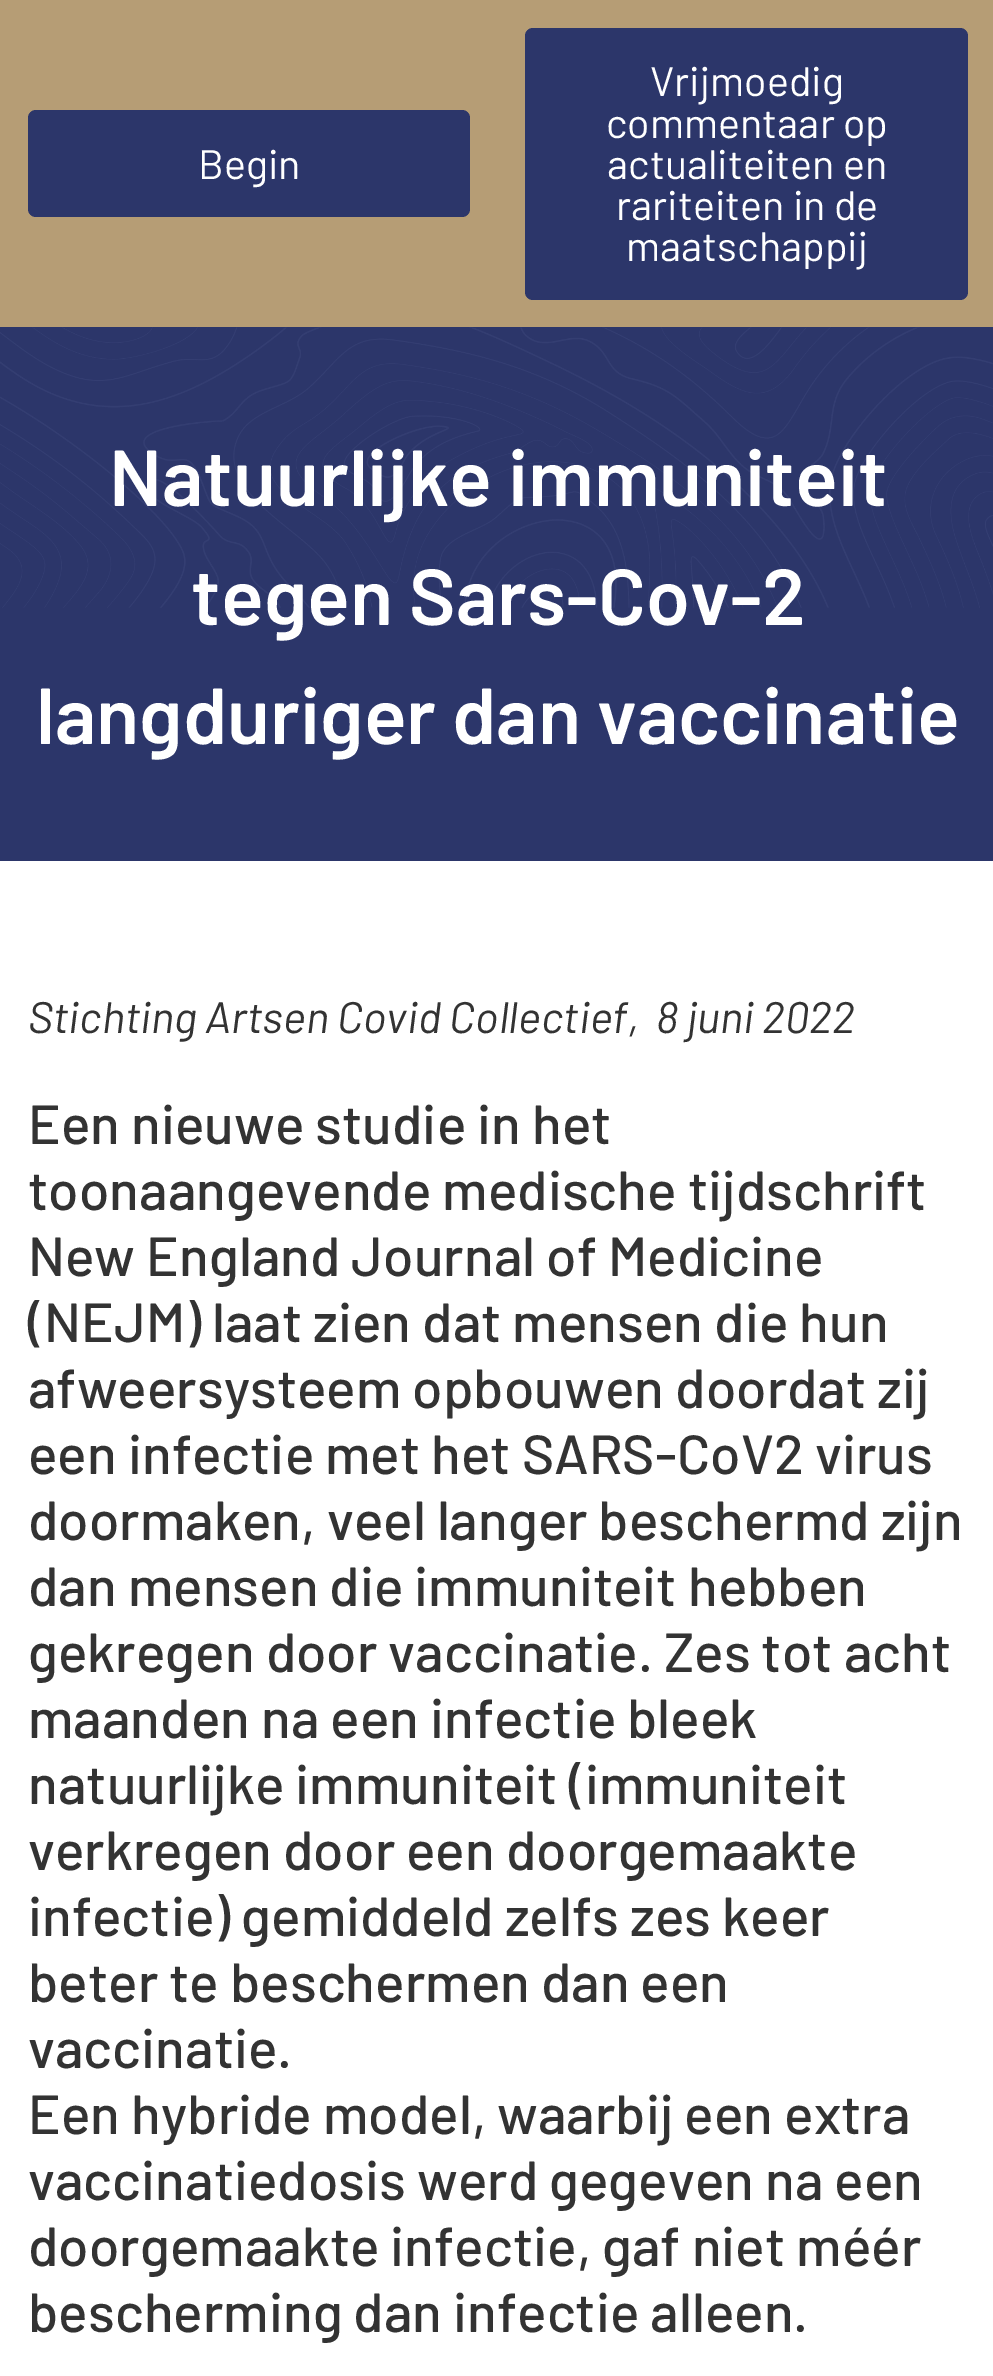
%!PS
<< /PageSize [993 2376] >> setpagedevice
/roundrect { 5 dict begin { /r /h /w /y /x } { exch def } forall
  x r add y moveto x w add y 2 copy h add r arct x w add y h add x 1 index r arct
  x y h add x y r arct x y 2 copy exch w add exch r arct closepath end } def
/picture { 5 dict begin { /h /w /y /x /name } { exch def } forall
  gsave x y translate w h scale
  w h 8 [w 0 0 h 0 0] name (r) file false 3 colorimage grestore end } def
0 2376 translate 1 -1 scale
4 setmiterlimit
1 setgray
0 0 993 2376 rectfill
0.714 0.616 0.459 setrgbcolor
0 0 993 327 rectfill
0.173 0.212 0.416 setrgbcolor
28 110 442 107 8 roundrect fill
/Barlow-Regular [41.25 0 0 -41.25 0 0] selectfont
1 setgray
198 179 moveto (Begin) show
0.173 0.212 0.416 setrgbcolor
525 28 443 272 8 roundrect fill
1 setgray
650 96 moveto (Vrijmoedig) show
606 138 moveto (commentaar op) show
607 179 moveto (actualiteiten en) show
616 220 moveto (rariteiten in de) show
626 261 moveto (maatschappij) show
0.173 0.212 0.416 setrgbcolor
0 327 993 534 rectfill
(img1.rgb) 0 327 993 281 picture
/Barlow-SemiBold [79.25 0 0 -79.25 0 0] selectfont
1 setgray
109 506 moveto (Natuurlijke immuniteit) show
191 625 moveto (tegen Sars-Cov-2) show
36 744 moveto (langduriger dan vaccinatie) show
/Barlow-Italic [44 0 0 -44 0 0] selectfont
0.2 setgray
28 1033 moveto (Stichting Artsen Covid Collectief,  8 juni 2022) show
/Barlow-Medium [55 0 0 -55 0 0] selectfont
28 1144 moveto (Een nieuwe studie in het) show
28 1210 moveto (toonaangevende medische tijdschrift) show
28 1276 moveto (New England Journal of Medicine) show
28 1342 moveto (\(NEJM\) laat zien dat mensen die hun) show
28 1408 moveto (afweersysteem opbouwen doordat zij) show
28 1474 moveto (een infectie met het SARS-CoV2 virus) show
28 1540 moveto (doormaken, veel langer beschermd zijn) show
28 1606 moveto (dan mensen die immuniteit hebben) show
28 1672 moveto (gekregen door vaccinatie. Zes tot acht) show
28 1738 moveto (maanden na een infectie bleek) show
28 1804 moveto (natuurlijke immuniteit \(immuniteit) show
28 1870 moveto (verkregen door een doorgemaakte) show
28 1936 moveto (infectie\) gemiddeld zelfs zes keer) show
28 2002 moveto (beter te beschermen dan een) show
28 2068 moveto (vaccinatie.) show
28 2134 moveto (Een hybride model, waarbij een extra) show
28 2200 moveto (vaccinatiedosis werd gegeven na een) show
28 2266 moveto (doorgemaakte infectie, gaf niet méér) show
28 2332 moveto (bescherming dan infectie alleen.) show
showpage
